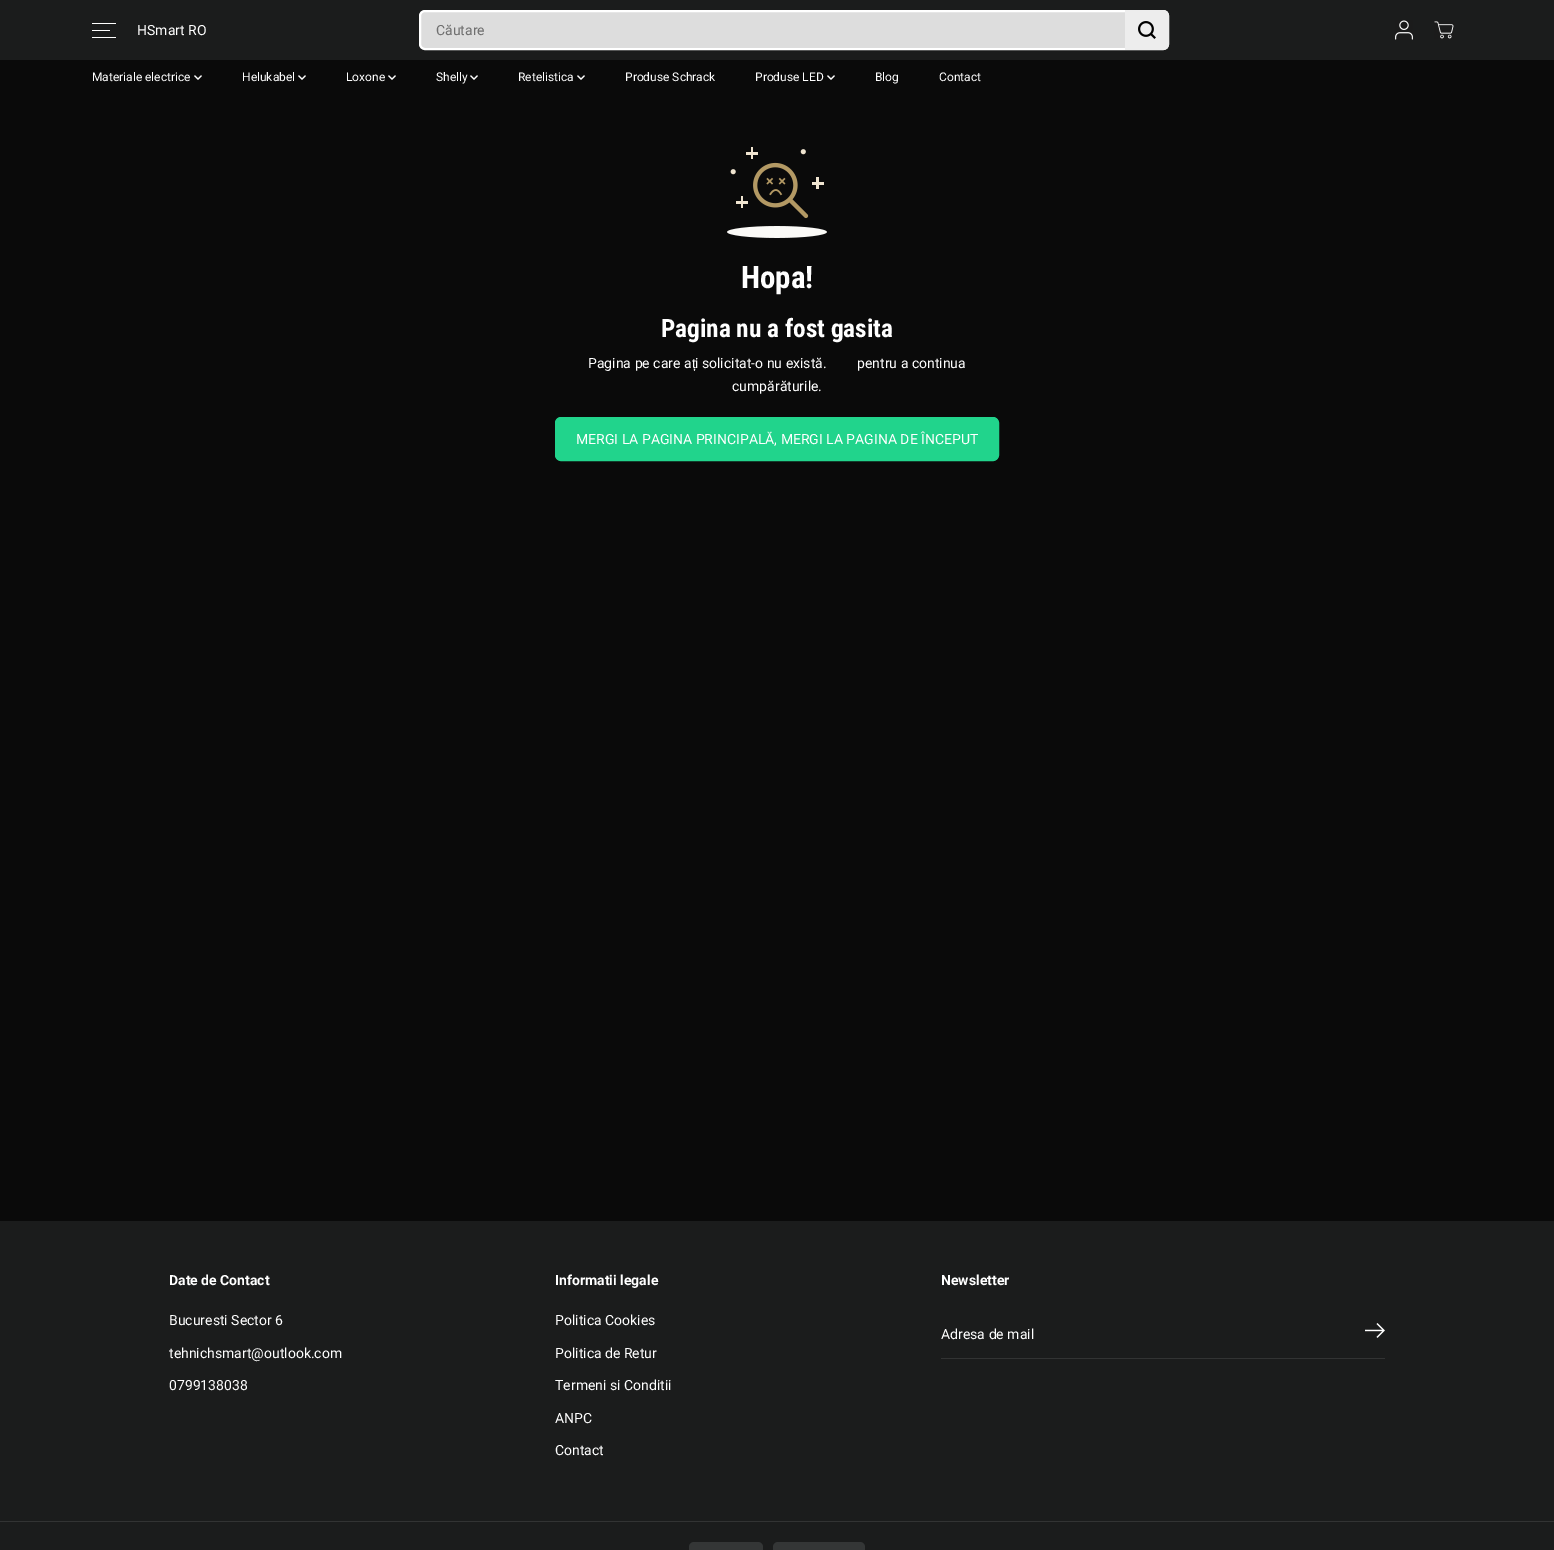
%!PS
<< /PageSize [1554 1550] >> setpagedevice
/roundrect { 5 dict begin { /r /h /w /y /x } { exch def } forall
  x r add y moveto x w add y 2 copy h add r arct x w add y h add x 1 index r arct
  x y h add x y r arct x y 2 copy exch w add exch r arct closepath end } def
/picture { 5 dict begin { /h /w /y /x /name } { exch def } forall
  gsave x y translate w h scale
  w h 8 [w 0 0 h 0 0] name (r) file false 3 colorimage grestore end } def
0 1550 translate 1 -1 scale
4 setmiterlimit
0.106 0.11 0.11 setrgbcolor
0 0 1554 1550 rectfill
1 setgray
92 30 18 1 rectfill
92 23 24 1 rectfill
92 37 24 1 rectfill
/Roboto-Regular [14 0 0 -14 0 0] selectfont
137 35 moveto (HSmart RO) show
0.867 setgray
420 11 748 38 5 roundrect gsave fill grestore
1 setgray
2 setlinewidth
stroke
0.435 setgray
436 35 moveto (Căutare) show
0.929 setgray
newpath 1125 10 moveto 1163 10 lineto 1166.5 10 1169 12.5 1169 16 curveto 1169 44 lineto 1169 47.5 1166.5 50 1163 50 curveto 1125 50 lineto closepath fill
(img1.rgb) 1138 21 18 18 picture
(img2.rgb) 1395 20 18 20 picture
(img3.rgb) 1434 21 20 18 picture
0.039 setgray
0 60 1554 1161 rectfill
/Roboto-Regular [12 0 0 -12 0 0] selectfont
1 setgray
92 81 moveto (Materiale electrice) show
(img4.rgb) 194 75 8 5 picture
242 81 moveto (Helukabel) show
(img4.rgb) 298 75 8 5 picture
346 81 moveto (Loxone) show
(img4.rgb) 388 75 8 5 picture
436 81 moveto (Shelly) show
(img4.rgb) 470 75 8 5 picture
518 81 moveto (Retelistica) show
(img4.rgb) 577 75 8 5 picture
625 81 moveto (Produse Schrack) show
755 81 moveto (Produse LED) show
(img4.rgb) 827 75 8 5 picture
875 81 moveto (Blog) show
939 81 moveto (Contact) show
(img5.rgb) 727 147 100 91 picture
/RobotoCondensed-Bold [31 0 0 -31 0 0] selectfont
741 288 moveto (Hopa!) show
/RobotoCondensed-Bold [25.25 0 0 -25.25 0 0] selectfont
661 337 moveto (Pagina nu a fost gasita) show
/Roboto-Regular [14 0 0 -14 0 0] selectfont
588 368 moveto (Pagina pe care a) show
/LiberationSans-Regular [14 0 0 -14 0 0] selectfont
692 368 moveto (ț) show
/Roboto-Regular [14 0 0 -14 0 0] selectfont
695 368 moveto (i solicitat-o nu există.) show
857 368 moveto (pentru a continua) show
732 391 moveto (cumpărăturile.) show
0.129 0.831 0.549 setrgbcolor
555.5 417.5 443 43 5.5 roundrect gsave fill grestore
1 setlinewidth
stroke
1 setgray
576 444 moveto (MERGI LA PAGINA PRINCIPALĂ, MERGI LA PAGINA DE ÎNCEPUT) show
/Roboto-Bold [14 0 0 -14 0 0] selectfont
169 1285 moveto (Date de Contact) show
/Roboto-Regular [14 0 0 -14 0 0] selectfont
169 1325 moveto (Bucuresti Sector 6) show
169 1358 moveto (tehnichsmart@outlook.com) show
169 1390 moveto (0799138038) show
/Roboto-Bold [14 0 0 -14 0 0] selectfont
555 1285 moveto (Informatii legale) show
/Roboto-Regular [14 0 0 -14 0 0] selectfont
555 1325 moveto (Politica Cookies) show
555 1358 moveto (Politica de Retur) show
555 1390 moveto (Termeni si Conditii) show
555 1423 moveto (ANPC) show
555 1455 moveto (Contact) show
/Roboto-Bold [14 0 0 -14 0 0] selectfont
941 1285 moveto (Newsletter) show
0.196 0.2 0.2 setrgbcolor
941 1358 444 1 rectfill
/Roboto-Regular [14 0 0 -14 0 0] selectfont
1 setgray
941 1339 moveto (Adresa de mail) show
(img6.rgb) 1365 1323 20 15 picture
0.196 0.2 0.2 setrgbcolor
0 1521 1554 1 rectfill
0.204 0.212 0.212 setrgbcolor
689 1542 74 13 5 roundrect fill
773 1542 92 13 5 roundrect fill
showpage
